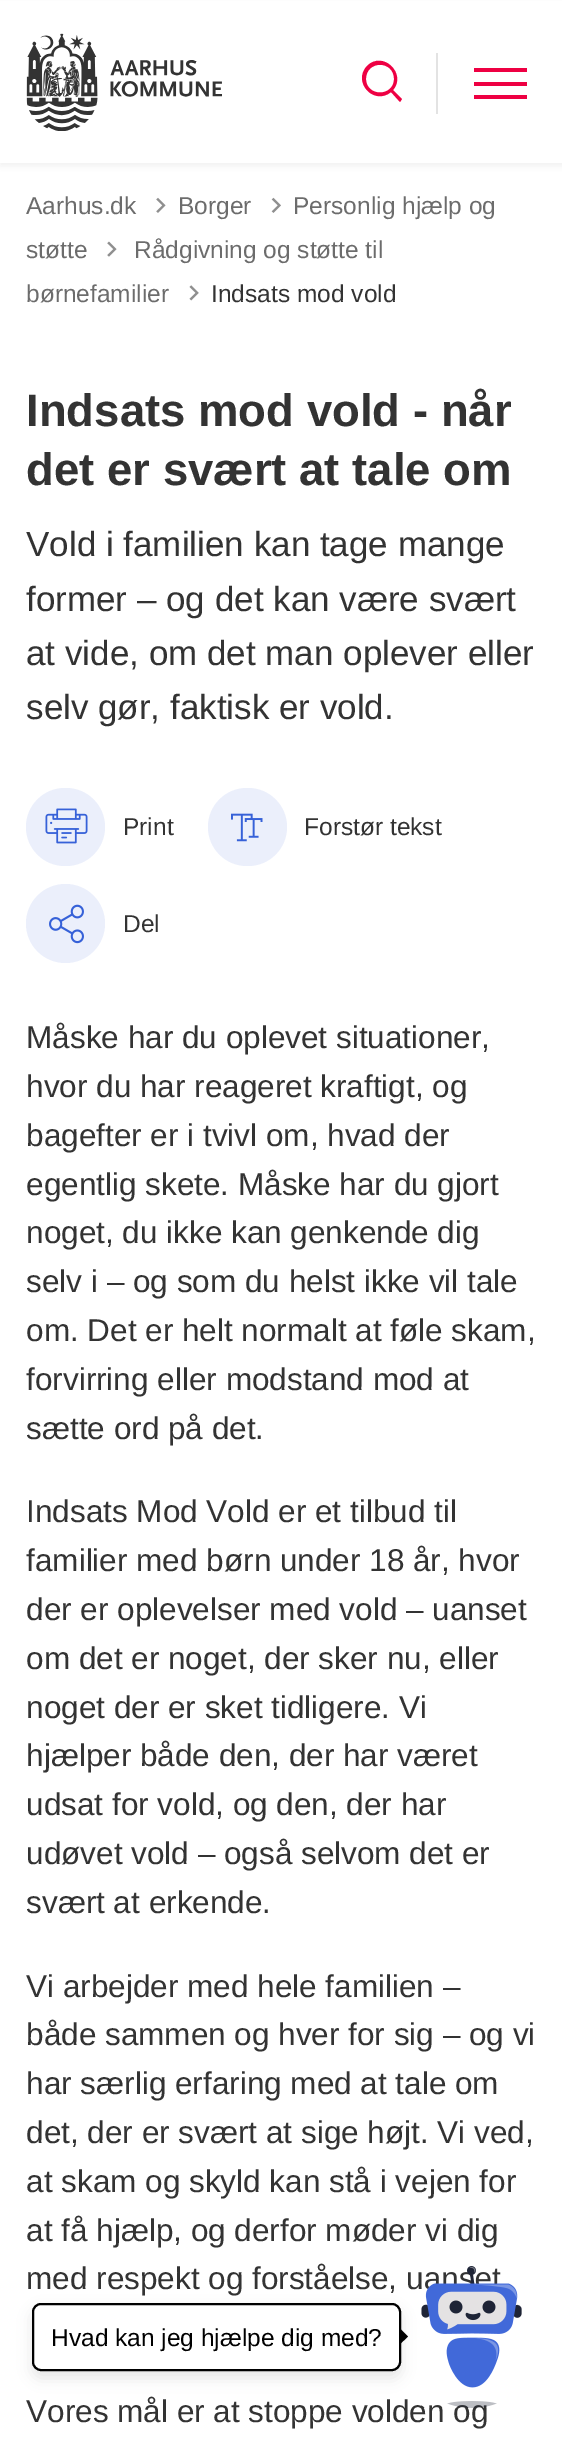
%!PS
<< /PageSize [562 2446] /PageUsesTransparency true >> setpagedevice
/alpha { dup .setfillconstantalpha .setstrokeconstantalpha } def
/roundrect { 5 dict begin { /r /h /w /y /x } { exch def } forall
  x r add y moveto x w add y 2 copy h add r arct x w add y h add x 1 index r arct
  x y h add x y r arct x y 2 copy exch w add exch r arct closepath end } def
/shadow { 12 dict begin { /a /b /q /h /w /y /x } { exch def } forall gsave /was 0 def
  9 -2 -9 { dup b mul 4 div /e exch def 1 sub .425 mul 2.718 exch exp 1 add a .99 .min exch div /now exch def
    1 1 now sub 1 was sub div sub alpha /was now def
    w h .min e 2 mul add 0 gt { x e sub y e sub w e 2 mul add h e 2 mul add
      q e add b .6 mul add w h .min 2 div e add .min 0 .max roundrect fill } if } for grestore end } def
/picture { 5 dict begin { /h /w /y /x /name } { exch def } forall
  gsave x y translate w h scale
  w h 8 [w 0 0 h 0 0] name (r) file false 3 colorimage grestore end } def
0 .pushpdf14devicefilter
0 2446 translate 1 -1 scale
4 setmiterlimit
1 setgray
0 0 562 2446 rectfill
0 setgray
0 4 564 162 0 3.5 0.05 shadow
1 setgray
0 1 562 162 rectfill
(img1.rgb) 26 33 196 98 picture
0.933 0 0.263 setrgbcolor
newpath 391 92 moveto 374 106 352 82 367 66 curveto 383 50 407 74 393 90 curveto 402 99 lineto 400 102 lineto closepath 394 79 moveto 394 97 366 97 366 79 curveto 366 60 394 60 394 79 curveto closepath eofill
0.89 setgray
436 53 2 61 rectfill
0.933 0 0.263 setrgbcolor
474 68 53 4 rectfill
474 82 53 4 rectfill
474 95 53 4 rectfill
/LiberationSans-Regular [24.5 0 0 -24.5 0 0] selectfont
0.424 setgray
26 214 moveto (Aarhus.dk) show
(img2.rgb) 156 197 10 16 picture
178 214 moveto (Borger) show
(img3.rgb) 271 197 10 16 picture
293 214 moveto (Personlig hjælp og) show
26 258 moveto (støtte) show
(img4.rgb) 107 241 10 16 picture
134 258 moveto (Rådgivning og støtte til) show
26 302 moveto (børnefamilier) show
(img5.rgb) 189 285 10 16 picture
0.2 setgray
211 302 moveto (Indsats mod vold) show
/LiberationSans-Bold [45.5 0 0 -45.5 0 0] selectfont
26 426 moveto (Indsats mod vold - når) show
26 485 moveto (det er svært at tale om) show
/LiberationSans-Regular [35 0 0 -35 0 0] selectfont
26 556 moveto (Vold i familien kan tage mange) show
26 611 moveto (former – og det kan være svært) show
26 665 moveto (at vide, om det man oplever eller) show
26 719 moveto (selv gør, faktisk er vold.) show
0.922 0.937 0.984 setrgbcolor
26 788 79 78 39 roundrect fill
(img6.rgb) 45 808 43 36 picture
/LiberationSans-Regular [24.5 0 0 -24.5 0 0] selectfont
0.2 setgray
123 835 moveto (Print) show
0.922 0.937 0.984 setrgbcolor
208 788 79 78 39 roundrect fill
(img7.rgb) 231 813 32 29 picture
0.2 setgray
304 835 moveto (Forstør tekst) show
0.922 0.937 0.984 setrgbcolor
newpath 65.5 923.5 39.5 0 360 arc closepath fill
(img8.rgb) 49 904 35 40 picture
0.2 setgray
123 932 moveto (Del) show
/LiberationSans-Regular [31.5 0 0 -31.5 0 0] selectfont
26 1048 moveto (Måske har du oplevet situationer,) show
26 1097 moveto (hvor du har reageret kraftigt, og) show
26 1146 moveto (bagefter er i tvivl om, hvad der) show
26 1195 moveto (egentlig skete. Måske har du gjort) show
26 1243 moveto (noget, du ikke kan genkende dig) show
26 1292 moveto (selv i – og som du helst ikke vil tale) show
26 1341 moveto (om. Det er helt normalt at føle skam,) show
26 1390 moveto (forvirring eller modstand mod at) show
26 1439 moveto (sætte ord på det.) show
26 1522 moveto (Indsats Mod Vold er et tilbud til) show
26 1571 moveto (familier med børn under 18 år, hvor) show
26 1620 moveto (der er oplevelser med vold – uanset) show
26 1669 moveto (om det er noget, der sker nu, eller) show
26 1718 moveto (noget der er sket tidligere. Vi) show
26 1766 moveto (hjælper både den, der har været) show
26 1815 moveto (udsat for vold, og den, der har) show
26 1864 moveto (udøvet vold – også selvom det er) show
26 1913 moveto (svært at erkende.) show
26 1997 moveto (Vi arbejder med hele familien –) show
26 2045 moveto (både sammen og hver for sig – og vi) show
26 2094 moveto (har særlig erfaring med at tale om) show
26 2143 moveto (det, der er svært at sige højt. Vi ved,) show
26 2192 moveto (at skam og skyld kan stå i vejen for) show
26 2241 moveto (at få hjælp, og derfor møder vi dig) show
26 2289 moveto (med respekt og forståelse, uanset) show
26 2422 moveto (Vores mål er at stoppe volden og) show
(img9.rgb) 421 2266 101 142 picture
0 setgray
32 2310 369 68 9 7 0.1 shadow
1 setgray
33 2304 367 66 8 roundrect gsave fill grestore
0 setgray
2 setlinewidth
stroke
/LiberationSans-Regular [24.5 0 0 -24.5 0 0] selectfont
51 2346 moveto (Hvad kan jeg hjælpe dig med?) show
newpath 399 2345 moveto 399 2327.5 lineto 408 2336.5 lineto closepath fill
.poppdf14devicefilter showpage
